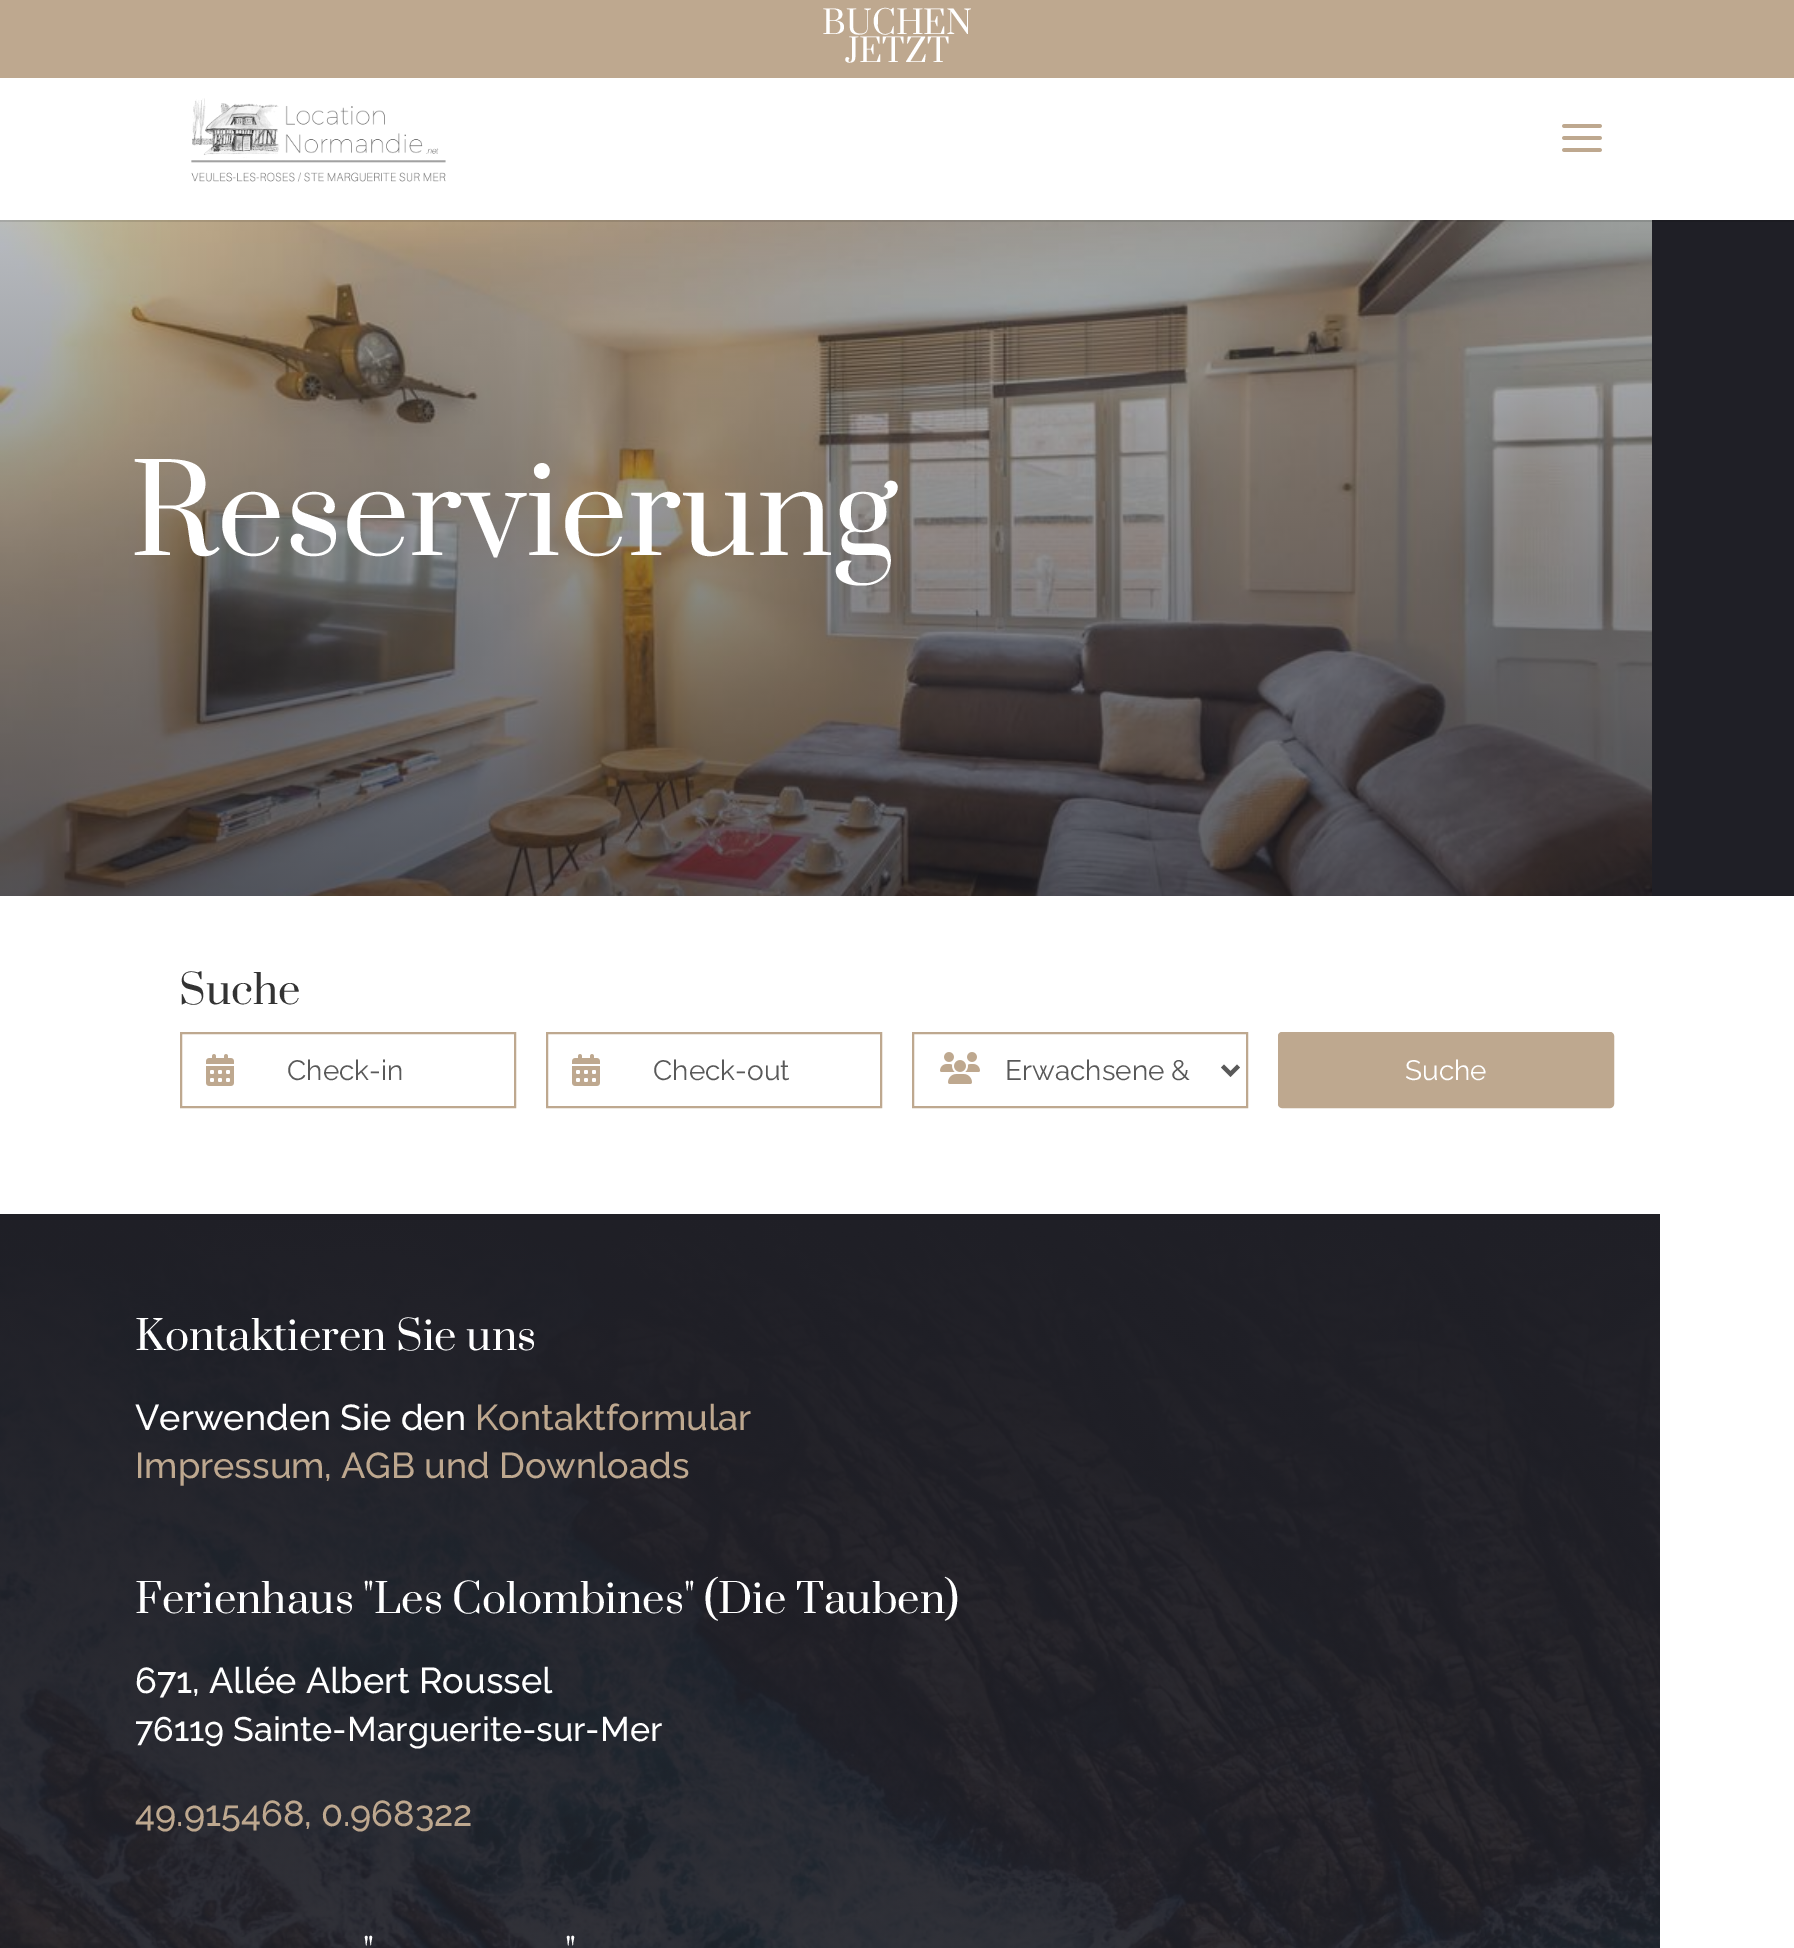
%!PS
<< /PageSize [1794 1948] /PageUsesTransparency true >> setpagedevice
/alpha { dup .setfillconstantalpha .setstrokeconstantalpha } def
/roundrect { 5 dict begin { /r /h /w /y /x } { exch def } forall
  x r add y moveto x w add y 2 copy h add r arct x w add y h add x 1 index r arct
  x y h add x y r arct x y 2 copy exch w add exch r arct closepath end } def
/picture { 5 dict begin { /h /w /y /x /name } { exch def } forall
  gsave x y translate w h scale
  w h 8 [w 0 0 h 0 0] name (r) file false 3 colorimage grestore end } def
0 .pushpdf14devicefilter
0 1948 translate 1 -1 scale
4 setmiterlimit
1 setgray
0 0 1794 1948 rectfill
(img3.rgb) 0 220 1652 676 picture
0.122 0.122 0.149 setrgbcolor
1652 220 142 676 rectfill
0.1 alpha
0 setgray
0 220 1794 2 rectfill
1 alpha
0.745 0.659 0.561 setrgbcolor
0 0 1794 78 rectfill
/Prata-Regular [32 0 0 -32 0 0] selectfont
1 setgray
822 34 moveto (BUCHEN) show
845 62 moveto (JETZT) show
(img1.rgb) 191 98 255 84 picture
(img2.rgb) 1562 124 40 28 picture
/Prata-Regular [120 0 0 -120 0 0] selectfont
130 555 moveto (Reservierung) show
/Prata-Regular [40 0 0 -40 0 0] selectfont
0.2 setgray
179 1004 moveto (Suche) show
0.745 0.659 0.561 setrgbcolor
2 setlinewidth
181 1033 334 74 rectstroke
(img4.rgb) 206 1054 28 32 picture
/Raleway-Thin [28 0 0 -28 0 0] selectfont
0.349 setgray
287 1080 moveto (Check-in) show
0.745 0.659 0.561 setrgbcolor
547 1033 334 74 rectstroke
(img4.rgb) 572 1054 28 32 picture
0.349 setgray
653 1080 moveto (Check-out) show
0.745 0.659 0.561 setrgbcolor
913 1033 334 74 rectstroke
(img5.rgb) 940 1052 40 32 picture
0.349 setgray
4 setlinewidth
newpath 1222.5 1066 moveto 1230.5 1074 lineto 1238.5 1066 lineto stroke
1005 1080 moveto (Erwachsene &) show
0.745 0.659 0.561 setrgbcolor
1279 1033 334 74 3 roundrect gsave fill grestore
2 setlinewidth
stroke
1 setgray
1405 1080 moveto (Suche) show
(img6.rgb) 0 1214 1660 734 picture
/Prata-Regular [40 0 0 -40 0 0] selectfont
135 1350 moveto (Kontaktieren Sie uns) show
/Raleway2-Thin [36 0 0 -36 0 0] selectfont
135 1430 moveto (Verwenden Sie den) show
0.745 0.659 0.561 setrgbcolor
475 1430 moveto (Kontaktformular) show
135 1478 moveto (Impressum, AGB und Downloads) show
/Prata-Regular [40 0 0 -40 0 0] selectfont
1 setgray
135 1613 moveto (Ferienhaus "Les Colombines" \(Die Tauben\)) show
/Raleway2-Thin [36 0 0 -36 0 0] selectfont
135 1693 moveto (671, Allée Albert Roussel) show
/Raleway2-Thin [34 0 0 -34 0 0] selectfont
135 1741 moveto (76119 Sainte-Marguerite-sur-Mer) show
/Raleway2-Thin [36 0 0 -36 0 0] selectfont
0.745 0.659 0.561 setrgbcolor
135 1826 moveto (49.915468, 0.968322) show
/Prata-Regular [40 0 0 -40 0 0] selectfont
1 setgray
363 1968 moveto (") show
565 1968 moveto (") show
.poppdf14devicefilter showpage
